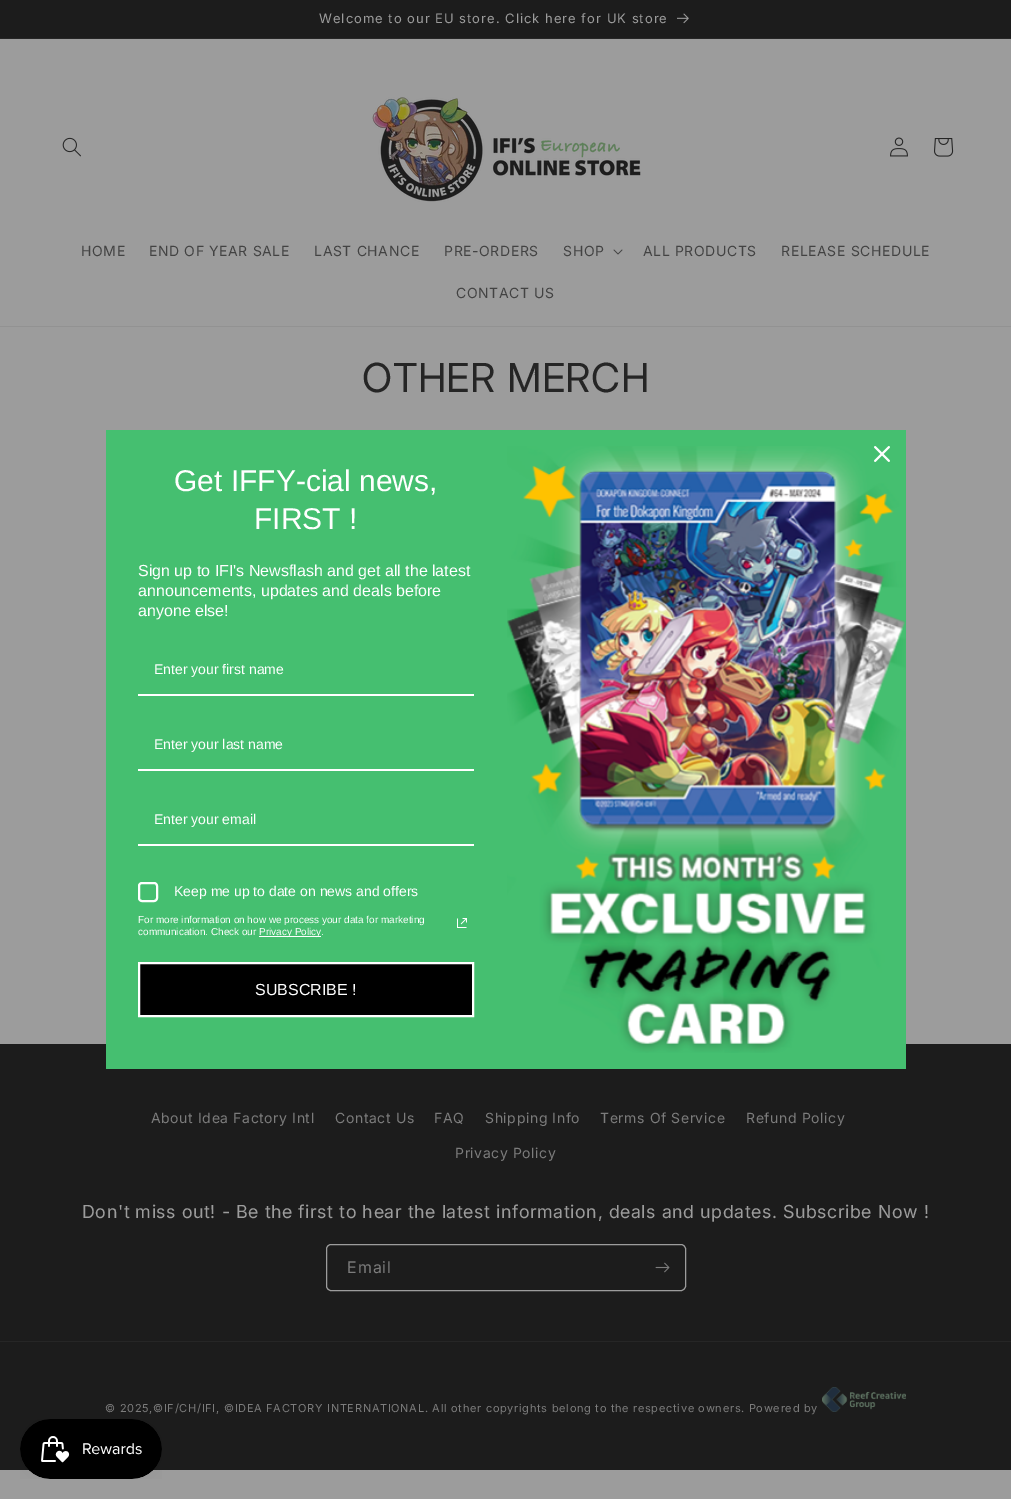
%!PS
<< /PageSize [1011 1499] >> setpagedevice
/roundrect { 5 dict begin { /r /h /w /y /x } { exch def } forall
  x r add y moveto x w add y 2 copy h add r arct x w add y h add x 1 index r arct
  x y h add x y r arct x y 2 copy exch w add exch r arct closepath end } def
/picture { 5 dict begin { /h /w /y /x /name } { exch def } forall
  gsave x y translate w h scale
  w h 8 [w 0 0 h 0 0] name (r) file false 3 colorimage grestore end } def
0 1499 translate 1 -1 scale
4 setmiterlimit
0.612 setgray
0 0 1011 1499 rectfill
0.11 setgray
0 0 1011 38 rectfill
0.149 setgray
0 38 1011 1 rectfill
/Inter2-Regular [13 0 0 -13 0 0] selectfont
0.612 setgray
319 23 moveto 1 0 (Welcome to our EU store. Click here for UK store) ashow
(img1.rgb) 677 13 12 11 picture
0.573 setgray
0 326 1011 1 rectfill
(img2.rgb) 62 137 19 20 picture
(img3.rgb) 372 97 269 105 picture
(img4.rgb) 890 137 18 20 picture
(img5.rgb) 934 138 20 19 picture
/Inter2-Regular [14 0 0 -14 0 0] selectfont
0.263 setgray
81 256 moveto 0.6 0 (HOME) ashow
149 256 moveto 0.6 0 (END OF YEAR SALE) ashow
314 256 moveto 0.6 0 (LAST CHANCE) ashow
444 256 moveto 0.6 0 (PRE-ORDERS) ashow
563 256 moveto 0.6 0 (SHOP) ashow
(img6.rgb) 613 249 10 6 picture
643 256 moveto 0.6 0 (ALL PRODUCTS) ashow
781 256 moveto 0.6 0 (RELEASE SCHEDULE) ashow
456 298 moveto 0.6 0 (CONTACT US) ashow
/Inter-Regular [40 0 0 -40 0 0] selectfont
0.145 setgray
362 392 moveto 0.6 0 (OTHER MERCH) ashow
0.11 setgray
0 1044 1011 426 rectfill
0.271 0.749 0.439 setrgbcolor
106 430 800 639 rectfill
(img8.rgb) 507 446 399 607 picture
(img7.rgb) 874 446 16 16 picture
/LiberationSans-Regular [30 0 0 -30 0 0] selectfont
1 setgray
174 491 moveto (Get IFFY-cial news,) show
254 529 moveto (FIRST !) show
/LiberationSans-Regular [16 0 0 -16 0 0] selectfont
138 576 moveto (Sign up to IFI's Newsflash and get all the latest) show
138 596 moveto (announcements, updates and deals before) show
138 616 moveto (anyone else!) show
138 694 336 2 rectfill
/LiberationSans-Regular [14 0 0 -14 0 0] selectfont
154 674 moveto (Enter your first name) show
138 769 336 2 rectfill
154 749 moveto (Enter your last name) show
138 844 336 2 rectfill
154 824 moveto (Enter your email) show
2 setlinewidth
139 883 18 18 3 roundrect stroke
174 896 moveto (Keep me up to date on news and offers) show
/LiberationSans-Regular [10 0 0 -10 0 0] selectfont
138 923 moveto (For more information on how we process your data for marketing) show
138 935 moveto (communication. Check our) show
259 936 62 1 rectfill
259 935 moveto (Privacy Policy.) show
(img9.rgb) 457 918 10 10 picture
0 setgray
newpath 139 963 moveto 473 963 lineto 473 1016 lineto 139 1016 lineto closepath gsave fill grestore
1 setgray
stroke
/LiberationSans-Regular [16 0 0 -16 0 0] selectfont
255 995 moveto (SUBSCRIBE !) show
/Inter2-Regular [14 0 0 -14 0 0] selectfont
0.486 setgray
151 1123 moveto 0.6 0 (About Idea Factory Intl) ashow
335 1123 moveto 0.6 0 (Contact Us) ashow
434 1123 moveto 0.6 0 (FAQ) ashow
485 1123 moveto 0.6 0 (Shipping Info) ashow
600 1123 moveto 0.6 0 (Terms Of Service) ashow
746 1123 moveto 0.6 0 (Refund Policy) ashow
455 1158 moveto 0.6 0 (Privacy Policy) ashow
/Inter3-Regular [18 0 0 -18 0 0] selectfont
0.612 setgray
82 1218 moveto 0.6 0 (Don't miss out! - Be the first to hear the latest information, deals and updates. Subscribe Now !) ashow
1 setlinewidth
326.5 1244.5 359 46 4.5 roundrect stroke
/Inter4-Regular [16 0 0 -16 0 0] selectfont
0.486 setgray
347 1273 moveto 1 0 (Email) ashow
(img10.rgb) 655 1262 15 11 picture
0.149 setgray
0 1341 1011 1 rectfill
/Inter2-Regular [11 0 0 -11 0 0] selectfont
0.486 setgray
105 1412 moveto 0.7 0 (© 2025,©IF/CH/IFI, ©IDEA FACTORY INTERNATIONAL. All other copyrights belong to the respective owners. Powered by) ashow
(img11.rgb) 822 1387 84 25 picture
(img12.rgb) 20 1419 142 60 picture
showpage
